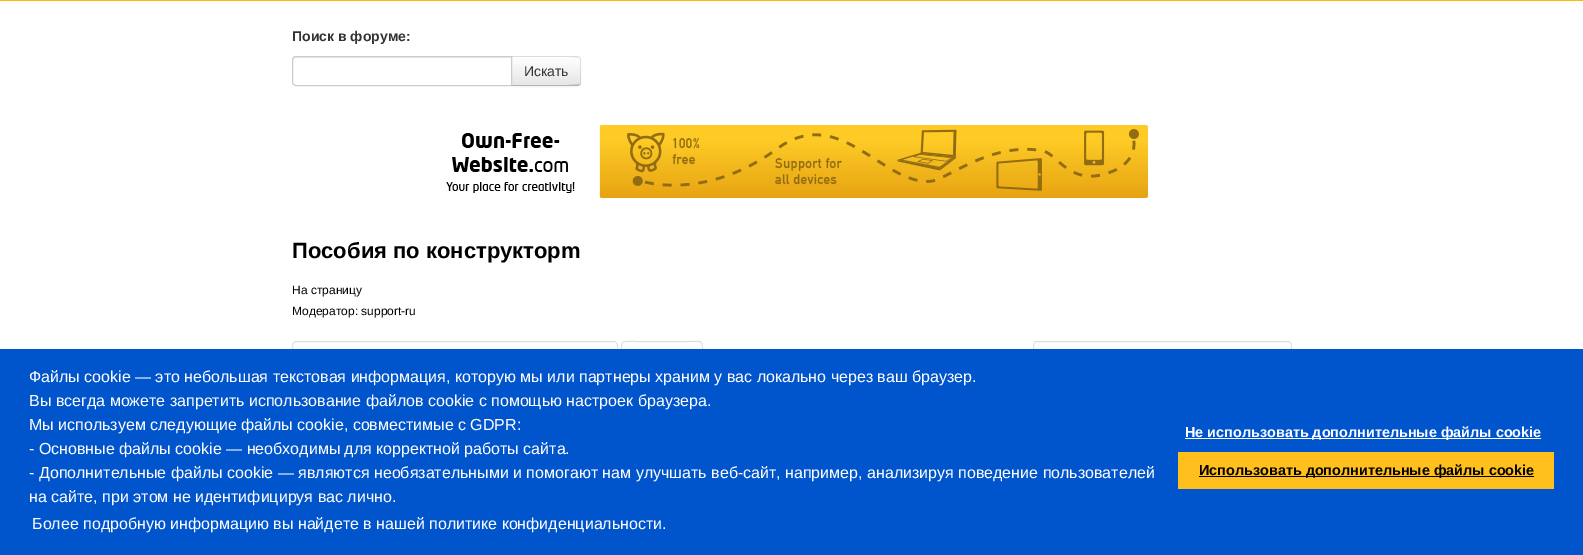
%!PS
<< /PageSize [1583 555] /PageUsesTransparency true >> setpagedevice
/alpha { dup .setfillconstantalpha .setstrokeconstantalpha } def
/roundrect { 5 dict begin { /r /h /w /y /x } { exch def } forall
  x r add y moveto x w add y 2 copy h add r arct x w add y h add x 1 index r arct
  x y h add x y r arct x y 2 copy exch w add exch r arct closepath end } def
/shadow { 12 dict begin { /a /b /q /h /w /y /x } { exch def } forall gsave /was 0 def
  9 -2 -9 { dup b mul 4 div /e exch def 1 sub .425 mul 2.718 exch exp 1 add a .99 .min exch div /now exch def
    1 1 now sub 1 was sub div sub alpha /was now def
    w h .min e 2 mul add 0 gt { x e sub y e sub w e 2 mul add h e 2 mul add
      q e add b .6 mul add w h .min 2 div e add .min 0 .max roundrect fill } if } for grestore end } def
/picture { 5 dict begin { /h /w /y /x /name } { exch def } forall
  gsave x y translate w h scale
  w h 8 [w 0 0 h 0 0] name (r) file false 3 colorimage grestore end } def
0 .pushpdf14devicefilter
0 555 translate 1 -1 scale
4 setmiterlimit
1 setgray
0 0 1583 555 rectfill
gsave newpath 0 0 moveto 1583 0 lineto 1583 1 lineto 0 1 lineto closepath clip newpath
<< /ShadingType 2 /ColorSpace /DeviceRGB /Coords [792 -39 792 1] /Extend [true true] /Function << /FunctionType 2 /Domain [0 1] /C0 [1 0.784 0.251] /C1 [1 0.722 0] /N 1 >> >> shfill grestore
/LiberationSans-Bold [14 0 0 -14 0 0] selectfont
0.2 setgray
292 41 moveto (Поиск в форуме:) show
0 setgray
511 57 70 30 4 1 0.05 shadow
0.961 setgray
newpath 511 56 moveto 577 56 lineto 579 56 581 58 581 60 curveto 581 82 lineto 581 84 579 86 577 86 curveto 511 86 lineto closepath fill
gsave
newpath 511 56 moveto 577 56 lineto 579 56 581 58 581 60 curveto 581 82 lineto 581 84 579 86 577 86 curveto 511 86 lineto closepath clip newpath
gsave newpath 512 57 moveto 581 57 lineto 581 85 lineto 512 85 lineto closepath clip newpath
<< /ShadingType 2 /ColorSpace /DeviceRGB /Coords [546 57 546 85] /Extend [true true] /Function << /FunctionType 2 /Domain [0 1] /C0 [1 1 1] /C1 [0.902 0.902 0.902] /N 1 >> >> shfill grestore
grestore
0.1 alpha
0 setgray
newpath 511 56 moveto 512 57 lineto 519 57 578 56 579 58 curveto 580 57 lineto 577 56 lineto closepath fill
newpath 581 82 moveto 581 60 lineto 581 59 580.5 58 580 57 curveto 579 58 lineto 580 58 580 59 580 60 curveto 580 82 lineto 580 83 580 84 579 84 curveto 580 85 lineto 580.5 84 581 83 581 82 curveto closepath fill
1 alpha
0.702 setgray
newpath 577 86 moveto 580 85 lineto 579 84 lineto 578 86 519 85 512 85 curveto 511 86 lineto closepath fill
1 setgray
newpath 296 56 moveto 512 56 lineto 512 86 lineto 296 86 lineto 294 86 292 84 292 82 curveto 292 60 lineto 292 58 294 56 296 56 curveto closepath fill
0.925 setgray
newpath 296 58 moveto 511 58 lineto 511 57 lineto 296 57 lineto 294 57 293 58 293 60 curveto 293 61 lineto 293 59 294 58 296 58 curveto closepath fill
0.8 setgray
newpath 296 56.5 moveto 511.5 56.5 lineto 511.5 85.5 lineto 296 85.5 lineto 294 85.5 292.5 84 292.5 82 curveto 292.5 60 lineto 292.5 58 294 56.5 296 56.5 curveto closepath stroke
/LiberationSans-Regular [14 0 0 -14 0 0] selectfont
0.2 setgray
524 76 moveto (Искать) show
(img1.rgb) 446 125 702 73 picture
/LiberationSans-Bold [22 0 0 -22 0 0] selectfont
0 setgray
292 258 moveto (Пособия по конструкторm) show
/LiberationSans-Regular [12 0 0 -12 0 0] selectfont
292 294 moveto (На страницу) show
292 315 moveto (Модератор: support-ru) show
0.961 setgray
292 341 326 30 4 roundrect fill
gsave
292 341 326 30 4 roundrect clip newpath
gsave newpath 292 342 moveto 618 342 lineto 618 349 lineto 292 349 lineto closepath clip newpath
<< /ShadingType 2 /ColorSpace /DeviceRGB /Coords [455 342 455 370] /Extend [true true] /Function << /FunctionType 2 /Domain [0 1] /C0 [1 1 1] /C1 [0.902 0.902 0.902] /N 1 >> >> shfill grestore
grestore
0.1 alpha
0 setgray
newpath 293.5 369.5 moveto 291.5 367.5 292.5 359 292.5 356 curveto 292.5 353 291 344.5 294 342.5 curveto 295.5 341.5 lineto 455 341.5 lineto 614.5 341.5 lineto 616 342.5 lineto 619 344.5 617.5 353 617.5 356 curveto 617.5 359 618.5 367.5 616.5 369.5 curveto stroke
1 alpha
0.961 setgray
621 341 82 30 4 roundrect fill
gsave
621 341 82 30 4 roundrect clip newpath
gsave newpath 621 342 moveto 703 342 lineto 703 349 lineto 621 349 lineto closepath clip newpath
<< /ShadingType 2 /ColorSpace /DeviceRGB /Coords [662 342 662 370] /Extend [true true] /Function << /FunctionType 2 /Domain [0 1] /C0 [1 1 1] /C1 [0.902 0.902 0.902] /N 1 >> >> shfill grestore
grestore
0.1 alpha
0 setgray
newpath 622.5 369.5 moveto 620.5 367.5 621.5 359 621.5 356 curveto 621.5 339 619.5 341.5 637.5 341.5 curveto 686.5 341.5 lineto 704.5 341.5 702.5 339 702.5 356 curveto 702.5 359 703.5 367.5 701.5 369.5 curveto stroke
1 alpha
0.961 setgray
1033 341 259 30 4 roundrect fill
gsave
1033 341 259 30 4 roundrect clip newpath
gsave newpath 1033 342 moveto 1292 342 lineto 1292 349 lineto 1033 349 lineto closepath clip newpath
<< /ShadingType 2 /ColorSpace /DeviceRGB /Coords [1163 342 1163 370] /Extend [true true] /Function << /FunctionType 2 /Domain [0 1] /C0 [1 1 1] /C1 [0.902 0.902 0.902] /N 1 >> >> shfill grestore
grestore
0.1 alpha
0 setgray
newpath 1034.5 369.5 moveto 1032 367 1033.5 352.5 1033.5 348.5 curveto 1033.5 346 1033 341.5 1037 341.5 curveto 1288 341.5 lineto 1292 341.5 1291.5 346 1291.5 348.5 curveto 1291.5 352.5 1293 367 1290.5 369.5 curveto stroke
1 alpha
0 0.333 0.8 setrgbcolor
0 349 1583 206 rectfill
/LiberationSans-Regular [16 0 0 -16 0 0] selectfont
1 setgray
29 382 moveto (Файлы cookie — это небольшая текстовая информация, которую мы или партнеры храним у вас локально через ваш браузер.) show
29 406 moveto (Вы всегда можете запретить использование файлов cookie с помощью настроек браузера.) show
29 430 moveto (Мы используем следующие файлы cookie, совместимые с GDPR:) show
29 454 moveto (- Основные файлы cookie — необходимы для корректной работы сайта.) show
29 478 moveto (- Дополнительные файлы cookie — являются необязательными и помогают нам улучшать веб-сайт, например, анализируя поведение пользователей) show
29 502 moveto (на сайте, при этом не идентифицируя вас лично.) show
32 529 moveto (Более подробную информацию вы найдете в нашей политике конфиденциальности.) show
1185 438 356 1 rectfill
/LiberationSans-Bold [14.4 0 0 -14.4 0 0] selectfont
1185 437 moveto (Не использовать дополнительные файлы cookie) show
1 0.753 0.114 setrgbcolor
1178 452 376 37 rectfill
0 setgray
1199 476 335 1 rectfill
1199 475 moveto (Использовать дополнительные файлы cookie) show
.poppdf14devicefilter showpage
